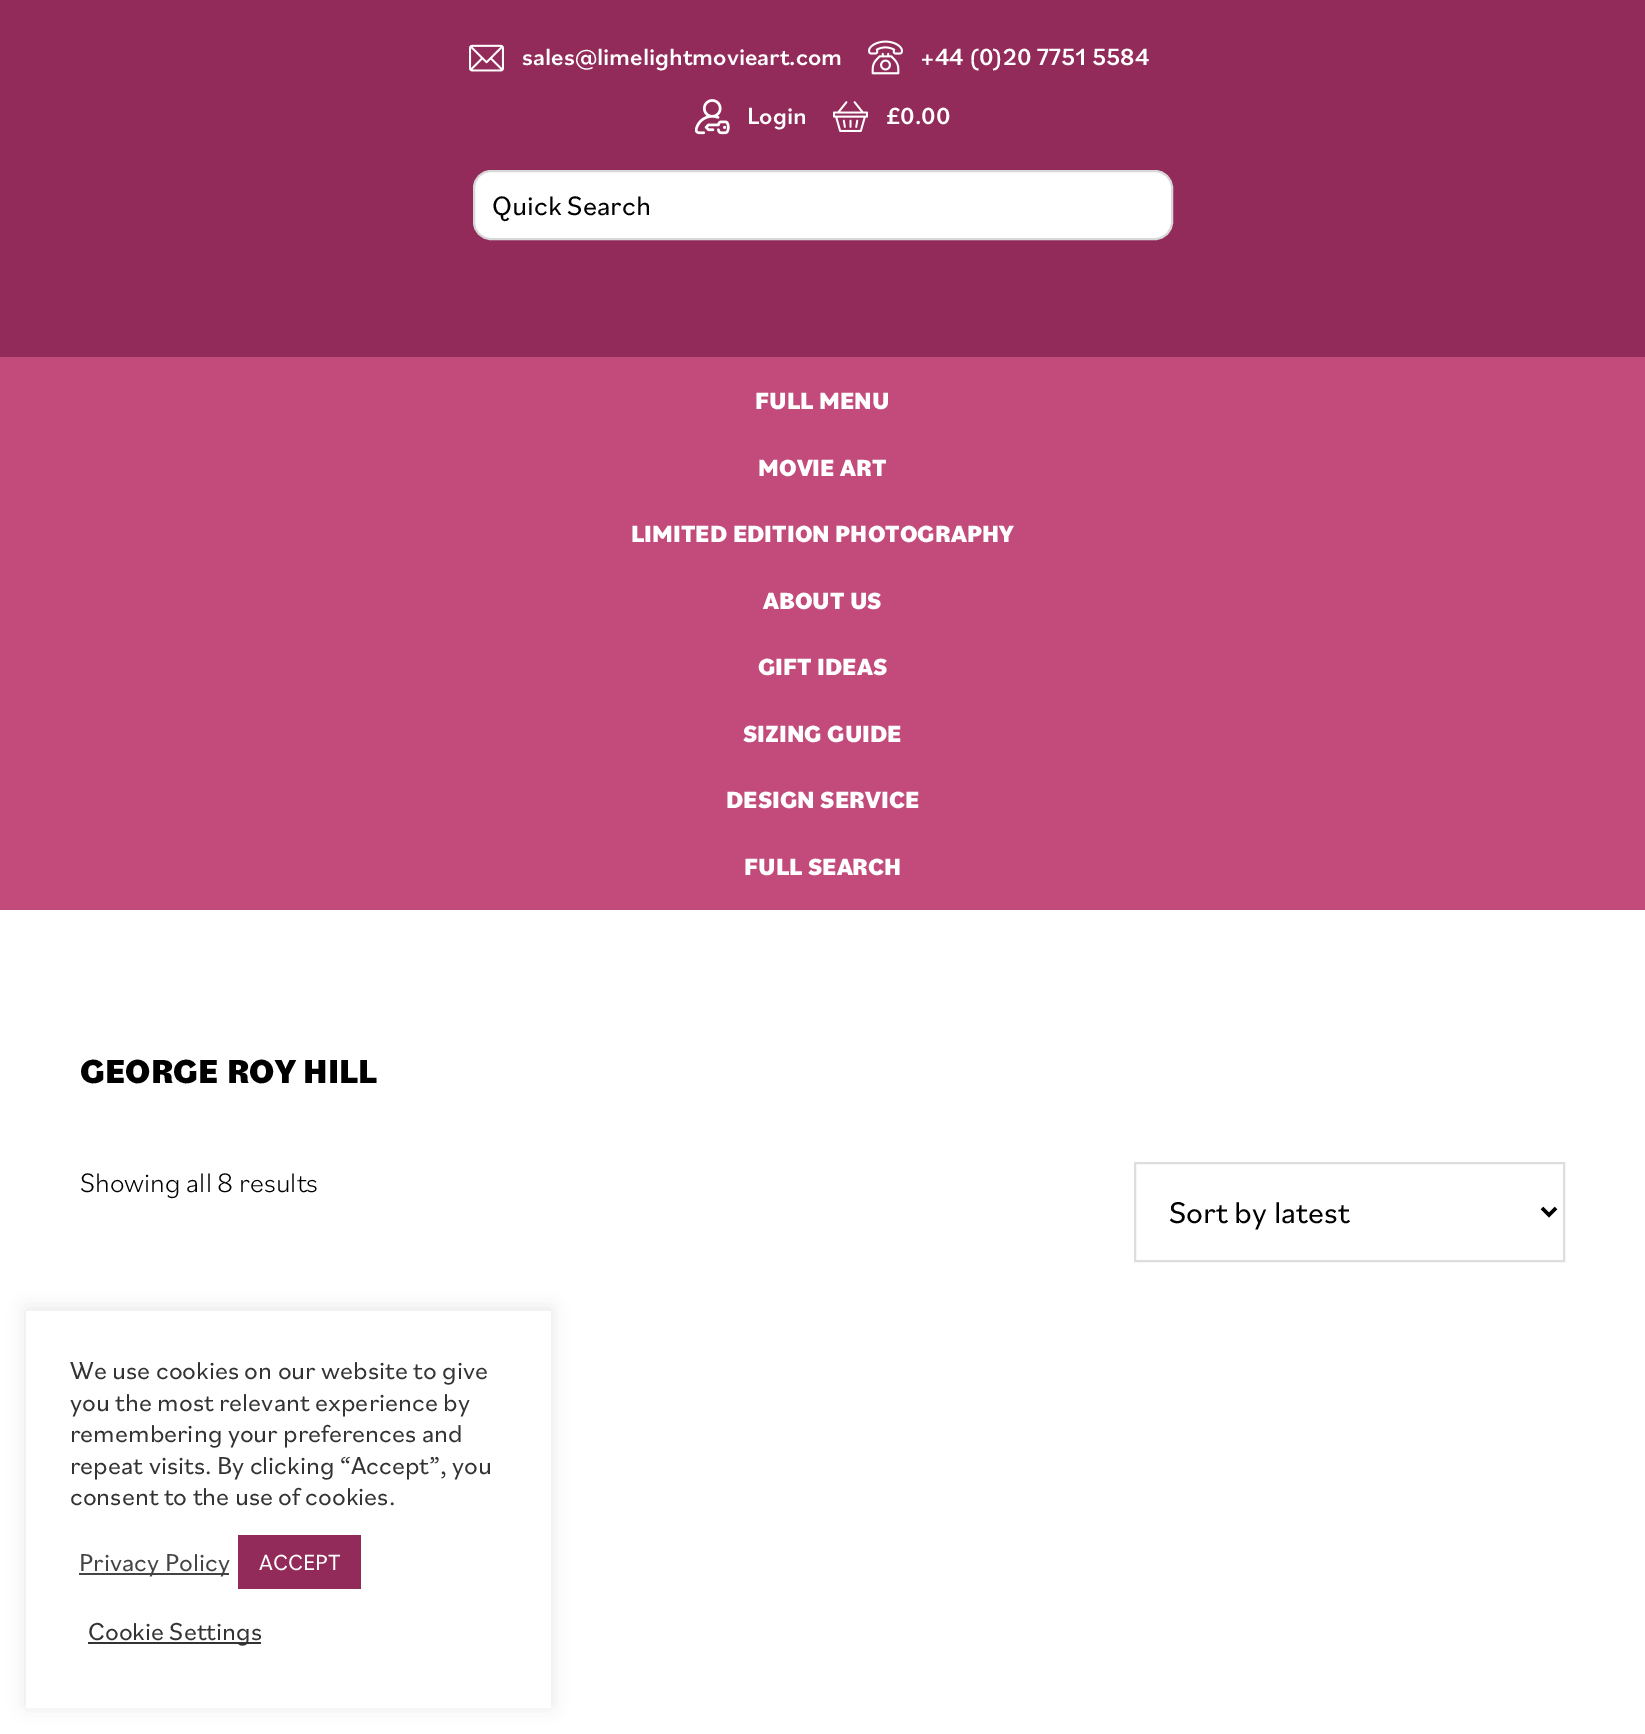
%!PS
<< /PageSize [1645 1734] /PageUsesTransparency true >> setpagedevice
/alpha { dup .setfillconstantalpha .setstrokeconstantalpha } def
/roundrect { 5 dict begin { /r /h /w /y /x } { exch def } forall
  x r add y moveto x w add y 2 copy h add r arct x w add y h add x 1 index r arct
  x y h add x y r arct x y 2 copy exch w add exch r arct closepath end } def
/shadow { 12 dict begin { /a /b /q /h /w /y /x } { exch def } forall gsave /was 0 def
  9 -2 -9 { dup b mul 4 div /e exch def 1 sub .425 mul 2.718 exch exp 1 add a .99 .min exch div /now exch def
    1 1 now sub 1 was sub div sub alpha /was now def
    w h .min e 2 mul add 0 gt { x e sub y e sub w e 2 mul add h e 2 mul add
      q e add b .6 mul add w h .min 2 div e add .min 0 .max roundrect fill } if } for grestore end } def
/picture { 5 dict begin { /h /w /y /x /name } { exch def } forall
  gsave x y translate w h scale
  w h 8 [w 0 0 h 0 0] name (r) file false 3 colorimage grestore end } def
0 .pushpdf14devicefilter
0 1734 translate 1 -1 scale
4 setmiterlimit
1 setgray
0 0 1645 1734 rectfill
0.573 0.169 0.353 setrgbcolor
0 0 1645 357 rectfill
(img1.rgb) 469 44 35 28 picture
/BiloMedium-Medium [24.5 0 0 -24.5 0 0] selectfont
1 setgray
522 65 moveto (sales@limelightmovieart.com) show
(img2.rgb) 868 40 35 35 picture
920 65 moveto (+44 \(0\)20 7751 5584) show
(img3.rgb) 695 99 35 36 picture
747 124 moveto (Login) show
(img4.rgb) 833 101 35 31 picture
886 124 moveto (£0.00) show
474 171 698 68 17 roundrect gsave fill grestore
0.847 setgray
2 setlinewidth
stroke
/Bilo-Regular [28 0 0 -28 0 0] selectfont
0 setgray
492 215 moveto (Quick Search) show
0.765 0.294 0.486 setrgbcolor
0 357 1645 553 rectfill
/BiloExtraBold-ExtraBold [24.5 0 0 -24.5 0 0] selectfont
1 setgray
755 409 moveto (FULL MENU) show
758 476 moveto (MOVIE ART) show
631 542 moveto (LIMITED EDITION PHOTOGRAPHY) show
763 609 moveto (ABOUT US) show
758 675 moveto (GIFT IDEAS) show
743 742 moveto (SIZING GUIDE) show
726 808 moveto (DESIGN SERVICE) show
744 875 moveto (FULL SEARCH) show
/BiloExtraBold-ExtraBold [35 0 0 -35 0 0] selectfont
0 setgray
80 1083 moveto (GEORGE ROY HILL) show
/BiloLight-Light [28 0 0 -28 0 0] selectfont
80 1192 moveto (Showing all 8 results) show
0.867 setgray
1135 1163 429 98 rectstroke
0 setgray
3.5 setlinewidth
newpath 1542 1208 moveto 1549 1215 lineto 1556 1208 lineto stroke
/Bilo-Regular [31.5 0 0 -31.5 0 0] selectfont
1169 1223 moveto (Sort by latest) show
0.675 0.671 0.671 setrgbcolor
26 1309 525 397 0 9 0.3 shadow
1 setgray
26 1311 525 397 rectfill
/Bilo-Regular [25.7 0 0 -25.7 0 0] selectfont
0.2 setgray
70 1379 moveto (We use cookies on our website to give) show
70 1411 moveto (you the most relevant experience by) show
70 1442 moveto (remembering your preferences and) show
70 1474 moveto (repeat visits. By clicking “Accept”, you) show
70 1505 moveto (consent to the use of cookies.) show
0.267 setgray
79 1573 150 2 rectfill
79 1571 moveto (Privacy Policy) show
0.573 0.169 0.349 setrgbcolor
238 1535 123 54 rectfill
/Bilo-Regular [23 0 0 -23 0 0] selectfont
1 setgray
259 1570 moveto (ACCEPT) show
0.2 setgray
88 1642 173 2 rectfill
/Bilo-Regular [25.7 0 0 -25.7 0 0] selectfont
88 1640 moveto (Cookie Settings) show
.poppdf14devicefilter showpage
